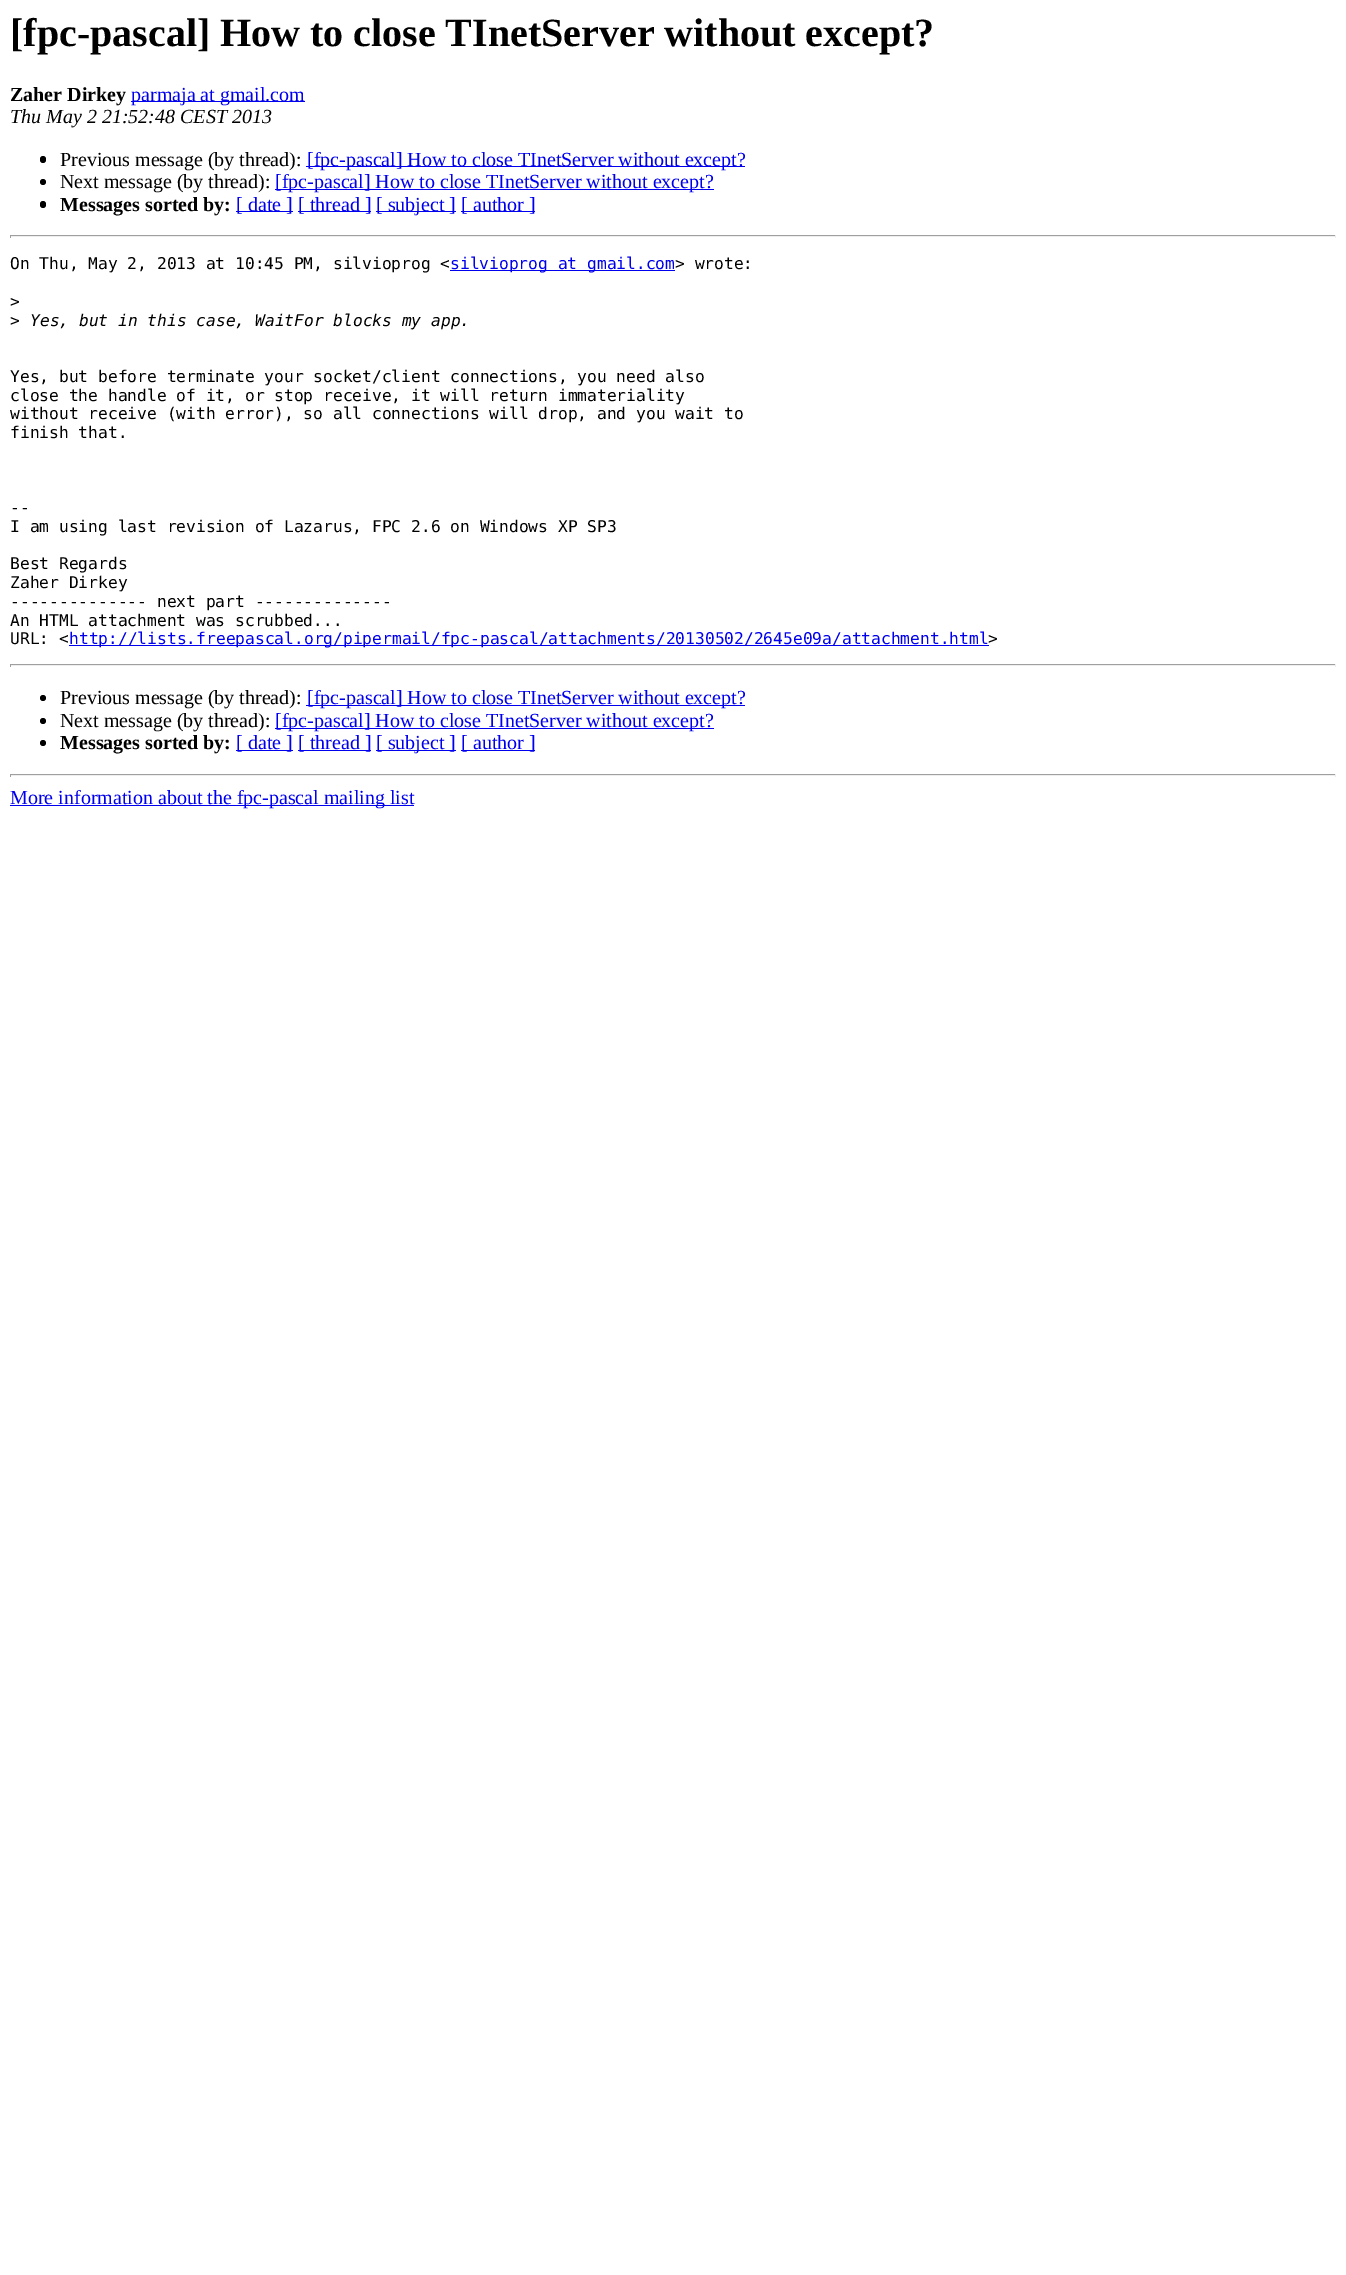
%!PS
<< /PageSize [1346 2275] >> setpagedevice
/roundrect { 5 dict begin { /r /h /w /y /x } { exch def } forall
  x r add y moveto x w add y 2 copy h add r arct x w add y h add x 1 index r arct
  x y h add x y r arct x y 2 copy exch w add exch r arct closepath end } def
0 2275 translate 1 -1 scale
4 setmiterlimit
1 setgray
0 0 1346 2275 rectfill
/LiberationSerif-Bold [40 0 0 -40 0 0] selectfont
0 setgray
10 46 moveto ([fpc-pascal] How to close TInetServer without except?) show
/LiberationSerif-Bold [20 0 0 -20 0 0] selectfont
10 101 moveto (Zaher Dirkey) show
0 0 0.933 setrgbcolor
131 101 174 1 rectfill
/LiberationSerif-Regular [20 0 0 -20 0 0] selectfont
131 101 moveto (parmaja at gmail.com) show
/LiberationSerif-Italic [20 0 0 -20 0 0] selectfont
0 setgray
10 123 moveto (Thu May 2 21:52:48 CEST 2013) show
40 156 6 7 3 roundrect fill
/LiberationSerif-Regular [20 0 0 -20 0 0] selectfont
60 166 moveto (Previous message \(by thread\):) show
0 0 0.933 setrgbcolor
306 166 439 1 rectfill
307 166 moveto ([fpc-pascal] How to close TInetServer without except?) show
0 setgray
newpath 43 182 3 0 360 arc closepath fill
60 188 moveto (Next message \(by thread\):) show
0 0 0.933 setrgbcolor
275 189 439 1 rectfill
275 188 moveto ([fpc-pascal] How to close TInetServer without except?) show
0 setgray
40 201 6 7 3 roundrect fill
/LiberationSerif-Bold [20 0 0 -20 0 0] selectfont
60 211 moveto (Messages sorted by:) show
0 0 0.933 setrgbcolor
236 211 57 1 rectfill
/LiberationSerif-Regular [20 0 0 -20 0 0] selectfont
236 211 moveto ([ date ]) show
298 211 73 1 rectfill
298 211 moveto ([ thread ]) show
376 211 80 1 rectfill
376 211 moveto ([ subject ]) show
461 211 74 1 rectfill
461 211 moveto ([ author ]) show
0.624 setgray
10 235 1326 1 rectfill
0.933 setgray
1335 235 1 3 rectfill
10 236 1326 1 rectfill
0.624 setgray
10 235 1 3 rectfill
/DejaVuSansMono-Regular [16.25 0 0 -16.25 0 0] selectfont
0 setgray
10 269 moveto (On Thu, May 2, 2013 at 10:45 PM, silvioprog <) show
0 0 0.933 setrgbcolor
450 270 225 1 rectfill
450 269 moveto (silvioprog at gmail.com) show
0 setgray
675 269 moveto (> wrote:) show
10 307 moveto (>) show
10 326 moveto (>) show
/DejaVuSansMono-Italic [16.25 0 0 -16.25 0 0] selectfont
30 326 moveto (Yes, but in this case, WaitFor blocks my app.) show
/DejaVuSansMono-Regular [16.25 0 0 -16.25 0 0] selectfont
10 382 moveto (Yes, but before terminate your socket/client connections, you need also) show
10 401 moveto (close the handle of it, or stop receive, it will return immateriality) show
10 419 moveto (without receive \(with error\), so all connections will drop, and you wait to) show
10 438 moveto (finish that.) show
10 513 moveto (--) show
10 532 moveto (I am using last revision of Lazarus, FPC 2.6 on Windows XP SP3) show
10 569 moveto (Best Regards) show
10 588 moveto (Zaher Dirkey) show
10 607 moveto (-------------- next part --------------) show
10 626 moveto (An HTML attachment was scrubbed...) show
10 644 moveto (URL: <) show
0 0 0.933 setrgbcolor
69 645 920 1 rectfill
69 644 moveto (http://lists.freepascal.org/pipermail/fpc-pascal/attachments/20130502/2645e09a/attachment.html) show
0 setgray
988 644 moveto (>) show
0.624 setgray
10 664 1326 1 rectfill
0.933 setgray
1335 664 1 3 rectfill
10 665 1326 1 rectfill
0.624 setgray
10 664 1 3 rectfill
0 setgray
newpath 43 698 3 0 360 arc closepath fill
/LiberationSerif-Regular [20 0 0 -20 0 0] selectfont
60 704 moveto (Previous message \(by thread\):) show
0 0 0.933 setrgbcolor
306 705 439 1 rectfill
307 704 moveto ([fpc-pascal] How to close TInetServer without except?) show
0 setgray
newpath 43 721 3 0 360 arc closepath fill
60 727 moveto (Next message \(by thread\):) show
0 0 0.933 setrgbcolor
275 728 439 1 rectfill
275 727 moveto ([fpc-pascal] How to close TInetServer without except?) show
0 setgray
newpath 43 743 3 0 360 arc closepath fill
/LiberationSerif-Bold [20 0 0 -20 0 0] selectfont
60 749 moveto (Messages sorted by:) show
0 0 0.933 setrgbcolor
236 750 57 1 rectfill
/LiberationSerif-Regular [20 0 0 -20 0 0] selectfont
236 749 moveto ([ date ]) show
298 750 73 1 rectfill
298 749 moveto ([ thread ]) show
376 750 80 1 rectfill
376 749 moveto ([ subject ]) show
461 750 74 1 rectfill
461 749 moveto ([ author ]) show
0.624 setgray
10 774 1326 1 rectfill
0.933 setgray
1335 774 1 3 rectfill
10 775 1326 1 rectfill
0.624 setgray
10 774 1 3 rectfill
0 0 0.933 setrgbcolor
10 805 404 1 rectfill
10 804 moveto (More information about the fpc-pascal mailing list) show
showpage
